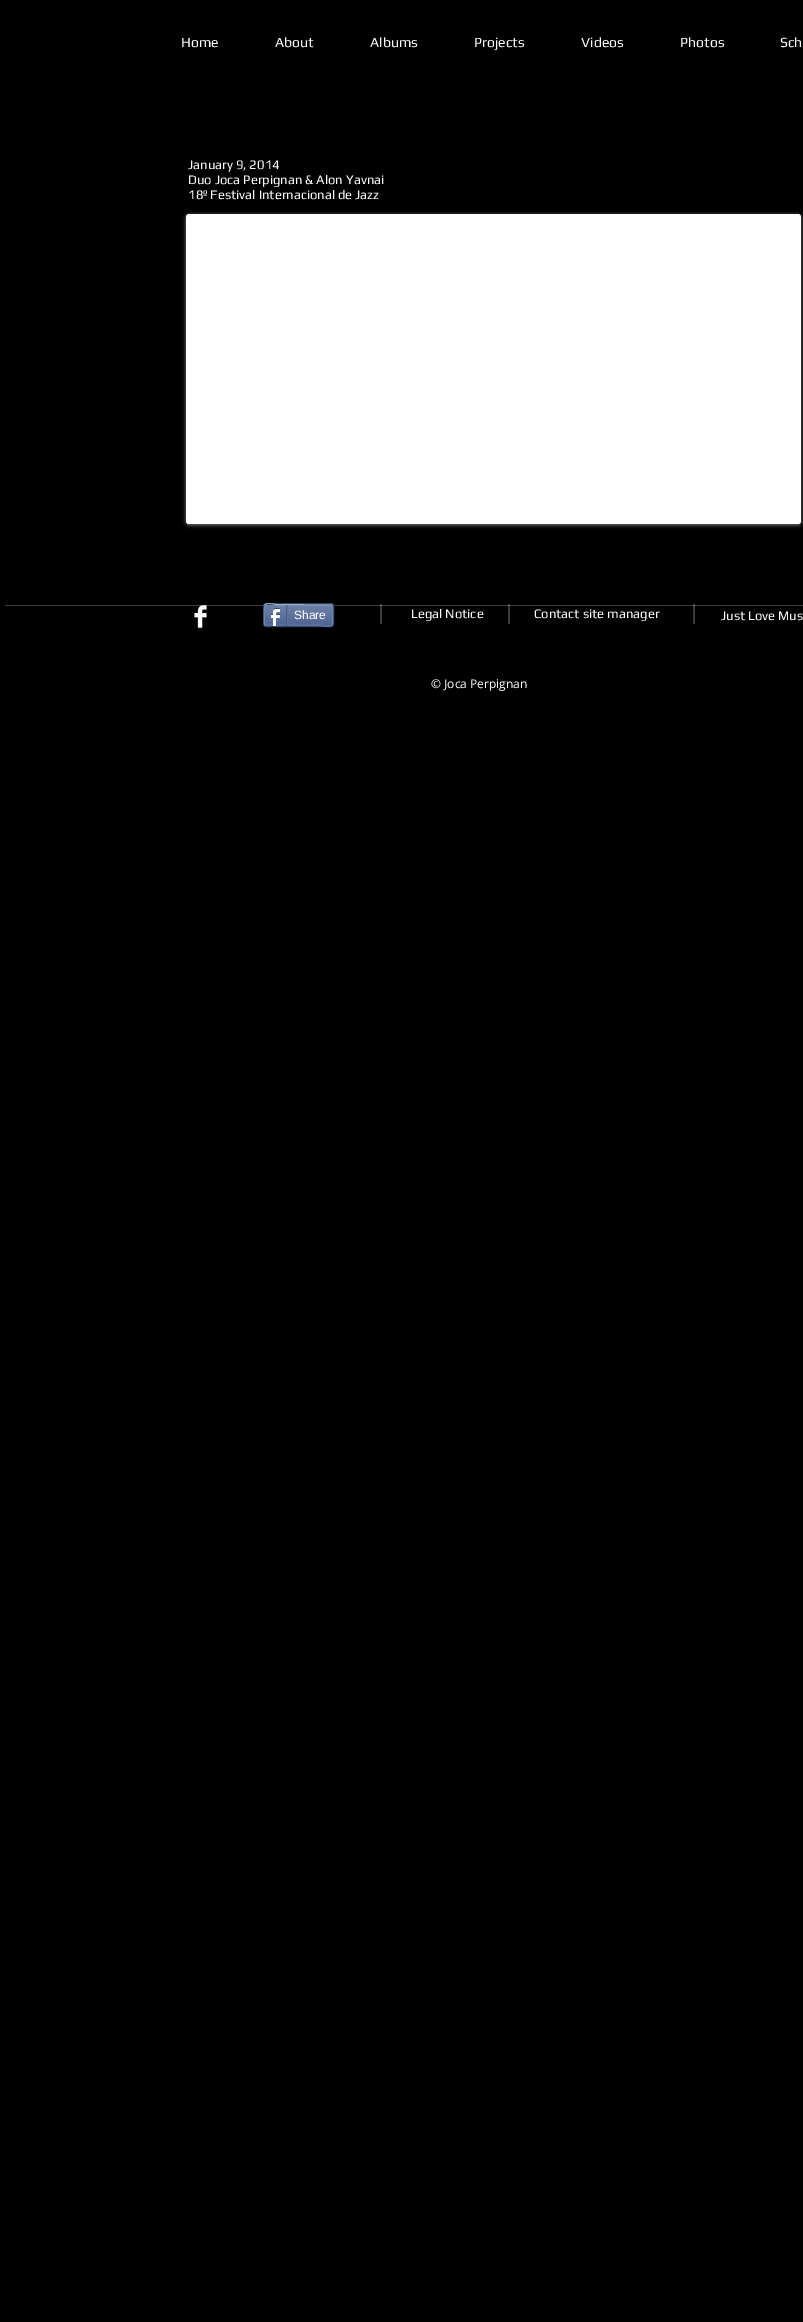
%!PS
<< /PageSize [803 2322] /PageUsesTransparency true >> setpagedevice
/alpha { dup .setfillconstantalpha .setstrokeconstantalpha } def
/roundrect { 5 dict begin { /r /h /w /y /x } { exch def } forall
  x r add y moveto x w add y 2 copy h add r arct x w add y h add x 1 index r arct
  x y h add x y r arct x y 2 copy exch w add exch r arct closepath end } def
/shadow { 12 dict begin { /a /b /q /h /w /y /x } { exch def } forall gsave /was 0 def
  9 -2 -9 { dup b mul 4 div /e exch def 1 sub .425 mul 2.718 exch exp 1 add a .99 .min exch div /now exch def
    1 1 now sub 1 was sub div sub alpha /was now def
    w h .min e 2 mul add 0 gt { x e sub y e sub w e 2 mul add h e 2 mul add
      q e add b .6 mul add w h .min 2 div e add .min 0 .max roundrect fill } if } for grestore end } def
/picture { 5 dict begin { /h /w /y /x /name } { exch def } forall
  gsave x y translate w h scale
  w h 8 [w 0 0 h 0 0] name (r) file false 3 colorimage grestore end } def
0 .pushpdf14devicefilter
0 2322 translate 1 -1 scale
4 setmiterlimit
0 setgray
0 0 803 2322 rectfill
/Play-Regular [14 0 0 -14 0 0] selectfont
1 setgray
181 47 moveto (Home) show
275 47 moveto (About) show
370 47 moveto (Albums) show
474 47 moveto (Projects) show
581 47 moveto (Videos) show
680 47 moveto (Photos) show
780 47 moveto (Sch) show
/Play-Regular [13 0 0 -13 0 0] selectfont
188 169 moveto (January 9, 2014) show
188 184 moveto (Duo Joca Perpignan & Alon Yavnai) show
188 199 moveto (18º Festival Internacional de Jazz) show
0.51 0.494 0.494 setrgbcolor
186 215 615 310 3 2 1 shadow
1 setgray
186 214 615 310 3 roundrect fill
0.239 setgray
693 604 2 20 rectfill
508 604 2 20 rectfill
380 604 2 20 rectfill
0.247 0.243 0.243 setrgbcolor
5 605 798 1 rectfill
0.416 0.412 0.412 setrgbcolor
693 605 2 1 rectfill
508 605 2 1 rectfill
380 605 2 1 rectfill
(img1.rgb) 194 605 13 23 picture
0.176 0.271 0.396 setrgbcolor
263.5 603.5 70 23 2.5 roundrect stroke
(img2.rgb) 264 605 69 21 picture
0.604 0.671 0.776 setrgbcolor
newpath 265 605 moveto 268 602 273 604.5 277 604.5 curveto 332 605 lineto stroke
0.435 0.514 0.678 setrgbcolor
newpath 332 605 moveto 333 605.5 333 624.5 332 625 curveto stroke
0.38 0.463 0.639 setrgbcolor
newpath 332 625 moveto 329 628 324 625.5 320 625.5 curveto 265 625 lineto stroke
0.435 0.514 0.678 setrgbcolor
newpath 265 625 moveto 264 624.5 264 605.5 265 605 curveto stroke
(img3.rgb) 270 608 10 18 picture
0.259 0.369 0.522 setrgbcolor
286 605 1 21 rectfill
/LiberationSans-Regular [12 0 0 -12 0 0] selectfont
1 setgray
294 619 moveto (Share) show
0.38 0.463 0.639 setrgbcolor
287 605 1 20 rectfill
/Play-Regular [13 0 0 -13 0 0] selectfont
1 setgray
411 618 moveto (Legal Notice) show
534 618 moveto (Contact site manager) show
721 620 moveto (Just Love Mus) show
/OpenSans-Regular [12 0 0 -12 0 0] selectfont
431 688 moveto (© Joca Perpignan) show
.poppdf14devicefilter showpage
